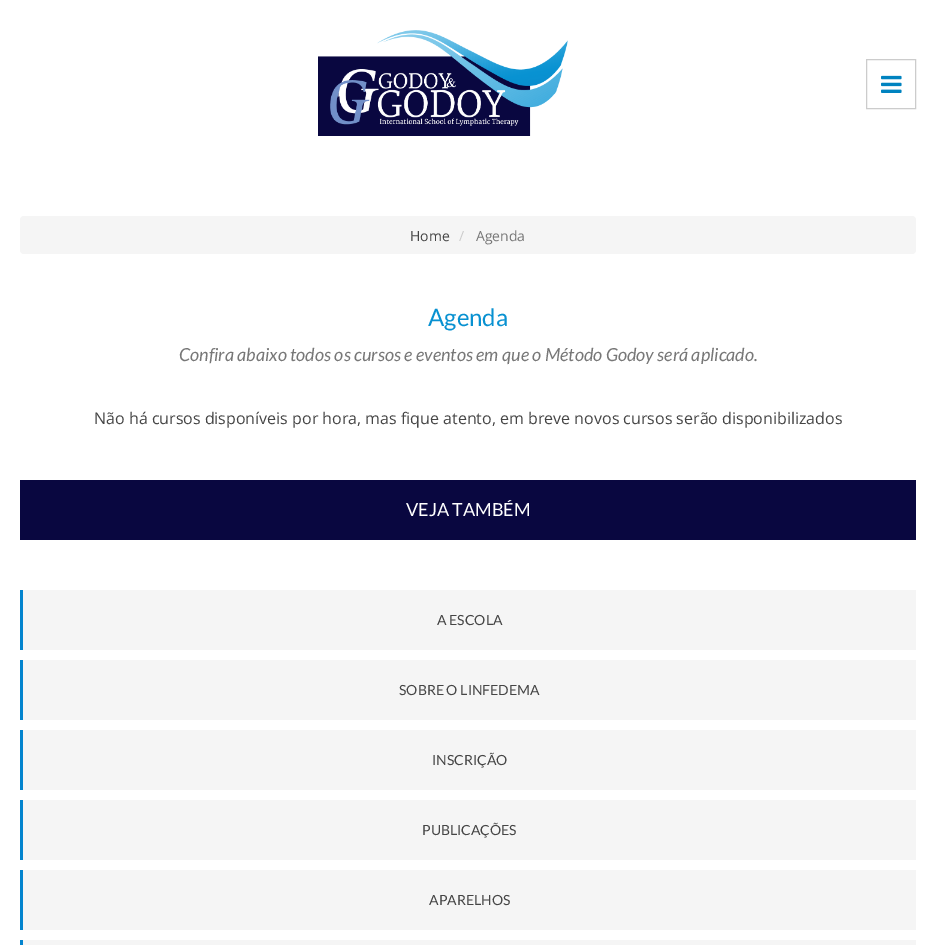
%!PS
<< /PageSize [936 945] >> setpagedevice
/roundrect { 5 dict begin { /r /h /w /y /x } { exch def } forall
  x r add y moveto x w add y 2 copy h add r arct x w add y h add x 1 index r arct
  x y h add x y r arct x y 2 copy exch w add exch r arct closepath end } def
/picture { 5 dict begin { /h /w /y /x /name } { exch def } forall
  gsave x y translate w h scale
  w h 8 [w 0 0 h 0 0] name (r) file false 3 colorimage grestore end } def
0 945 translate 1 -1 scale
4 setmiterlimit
1 setgray
0 0 936 945 rectfill
(img1.rgb) 318 30 250 106 picture
0.8 setgray
866.5 59.5 49 49 rectstroke
(img2.rgb) 881 75 21 18 picture
0.961 setgray
20 216 896 38 4 roundrect fill
/OpenSans-Regular [14 0 0 -14 0 0] selectfont
0.271 setgray
410 241 moveto (Home) show
0.8 setgray
459 241 moveto (/) show
0.467 setgray
476 241 moveto (Agenda) show
/Lato-Regular [24 0 0 -24 0 0] selectfont
0.031 0.569 0.82 setrgbcolor
428 326 moveto (Agenda) show
/Lato-Italic [18 0 0 -18 0 0] selectfont
0.467 setgray
179 361 moveto (Confira abaixo todos os cursos e eventos em que o Método Godoy será aplicado.) show
/OpenSans-Regular [16 0 0 -16 0 0] selectfont
0.271 setgray
94 424 moveto (Não há cursos disponíveis por hora, mas fique atento, em breve novos cursos serão disponibilizados) show
0.035 0.027 0.251 setrgbcolor
20 480 896 60 rectfill
/Lato-Regular [18 0 0 -18 0 0] selectfont
1 setgray
406 516 moveto (VEJA TAMBÉM) show
0.961 setgray
23 590 893 60 rectfill
0.012 0.518 0.808 setrgbcolor
20 590 3 60 rectfill
/Lato-Regular [14 0 0 -14 0 0] selectfont
0.271 setgray
437 625 moveto (A ESCOLA) show
0.961 setgray
23 660 893 60 rectfill
0.012 0.518 0.808 setrgbcolor
20 660 3 60 rectfill
0.271 setgray
399 695 moveto (SOBRE O LINFEDEMA) show
0.961 setgray
23 730 893 60 rectfill
0.012 0.518 0.808 setrgbcolor
20 730 3 60 rectfill
0.271 setgray
432 765 moveto (INSCRIÇÃO) show
0.961 setgray
23 800 893 60 rectfill
0.012 0.518 0.808 setrgbcolor
20 800 3 60 rectfill
0.271 setgray
422 835 moveto (PUBLICAÇÕES) show
0.961 setgray
23 870 893 60 rectfill
0.012 0.518 0.808 setrgbcolor
20 870 3 60 rectfill
0.271 setgray
429 905 moveto (APARELHOS) show
0.961 setgray
20 940 896 5 rectfill
0.012 0.518 0.808 setrgbcolor
20 940 3 5 rectfill
showpage
